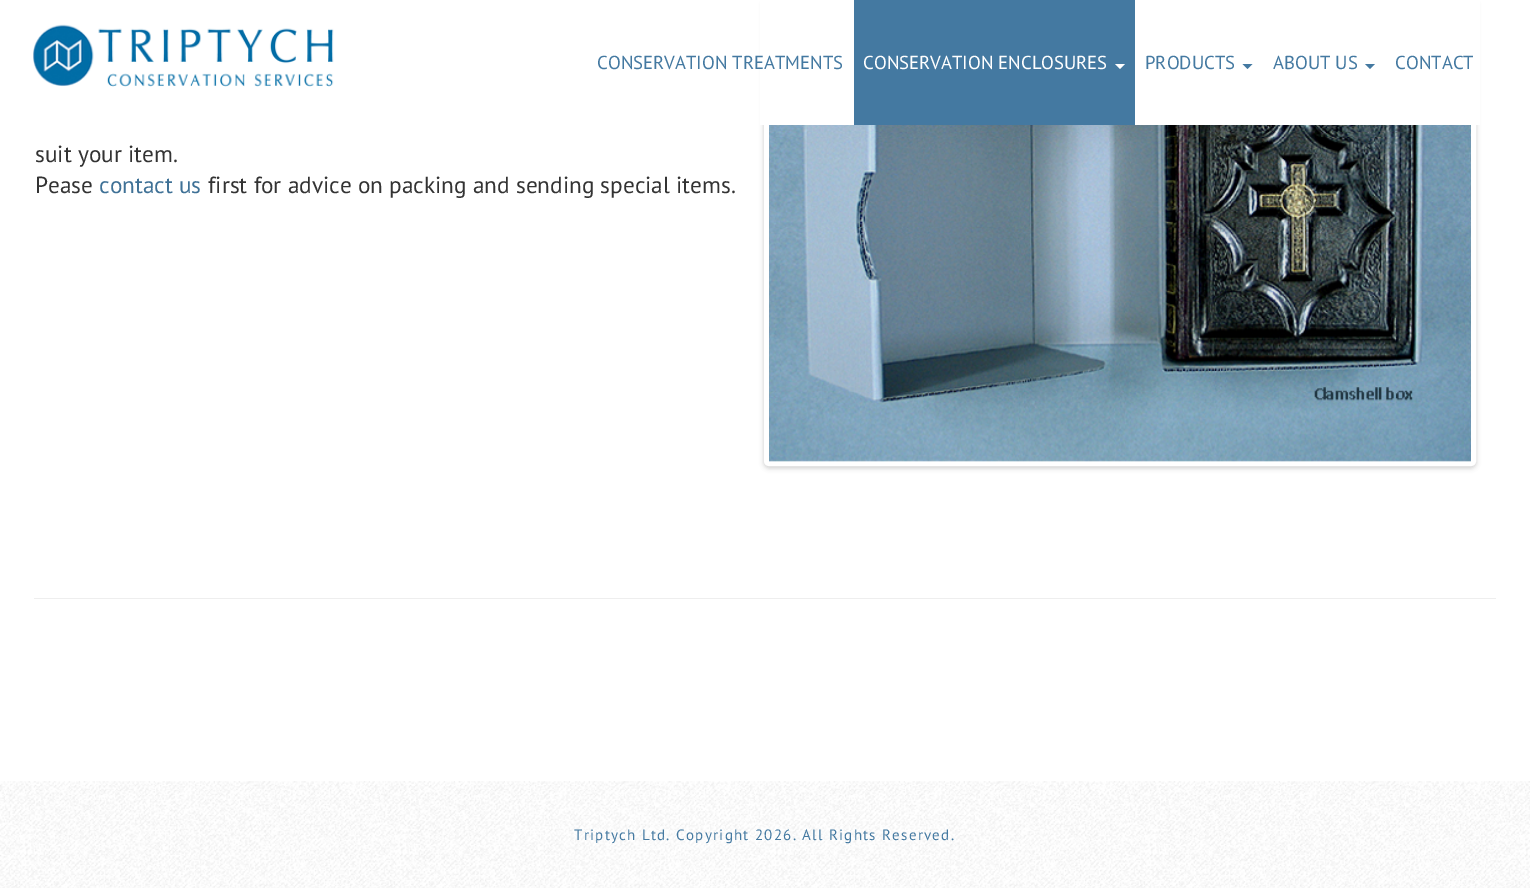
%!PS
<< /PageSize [1530 888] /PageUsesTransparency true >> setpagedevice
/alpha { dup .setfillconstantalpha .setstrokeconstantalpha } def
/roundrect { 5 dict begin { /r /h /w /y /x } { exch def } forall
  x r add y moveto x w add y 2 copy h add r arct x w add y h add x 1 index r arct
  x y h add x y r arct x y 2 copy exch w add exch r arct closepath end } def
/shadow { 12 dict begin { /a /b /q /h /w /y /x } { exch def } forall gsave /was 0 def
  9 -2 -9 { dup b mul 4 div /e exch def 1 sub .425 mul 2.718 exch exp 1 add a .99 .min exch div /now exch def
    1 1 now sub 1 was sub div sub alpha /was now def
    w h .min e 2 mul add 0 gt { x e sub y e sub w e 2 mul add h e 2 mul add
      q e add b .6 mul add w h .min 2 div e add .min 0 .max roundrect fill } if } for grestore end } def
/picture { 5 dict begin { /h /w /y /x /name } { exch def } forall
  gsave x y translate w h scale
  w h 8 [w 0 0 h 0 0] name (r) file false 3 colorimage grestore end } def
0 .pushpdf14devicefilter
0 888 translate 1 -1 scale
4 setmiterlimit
1 setgray
0 0 1530 888 rectfill
0 setgray
764 0 712 468 5 2.5 0.2 shadow
1 setgray
5 setlinewidth
766.5 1.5 707 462 2.5 roundrect stroke
760 0 720 125 rectfill
(img1.rgb) 33 24 301 63 picture
/PTSans-Regular [18.75 0 0 -18.75 0 0] selectfont
0.267 0.475 0.631 setrgbcolor
597 69 moveto (CONSERVATION TREATMENTS) show
854 0 281 125 rectfill
1 setgray
863 69 moveto (CONSERVATION ENCLOSURES) show
newpath 1115 64 moveto 1125 64 lineto 1120 69 lineto closepath fill
0.267 0.475 0.631 setrgbcolor
1145 69 moveto (PRODUCTS) show
newpath 1242.5 64 moveto 1252.5 64 lineto 1247.5 69 lineto closepath fill
1273 69 moveto (ABOUT US) show
newpath 1365 64 moveto 1375 64 lineto 1370 69 lineto closepath fill
1395 69 moveto (CONTACT) show
/PTSans-Regular [23.3 0 0 -23.3 0 0] selectfont
0.2 setgray
35 162 moveto (suit your item.) show
35 193 moveto (Pease) show
0.247 0.443 0.588 setrgbcolor
99 193 moveto (contact us) show
0.2 setgray
208 193 moveto (first for advice on packing and sending special items.) show
(img2.rgb) 769 125 702 337 picture
0.933 setgray
34 598 1462 1 rectfill
(img3.rgb) 0 781 1530 107 picture
/PTSans-Regular [15 0 0 -15 0 0] selectfont
0.267 0.475 0.631 setrgbcolor
574 840 moveto 1.25 0 (Triptych Ltd. Copyright 2026. All Rights Reserved.) ashow
.poppdf14devicefilter showpage
